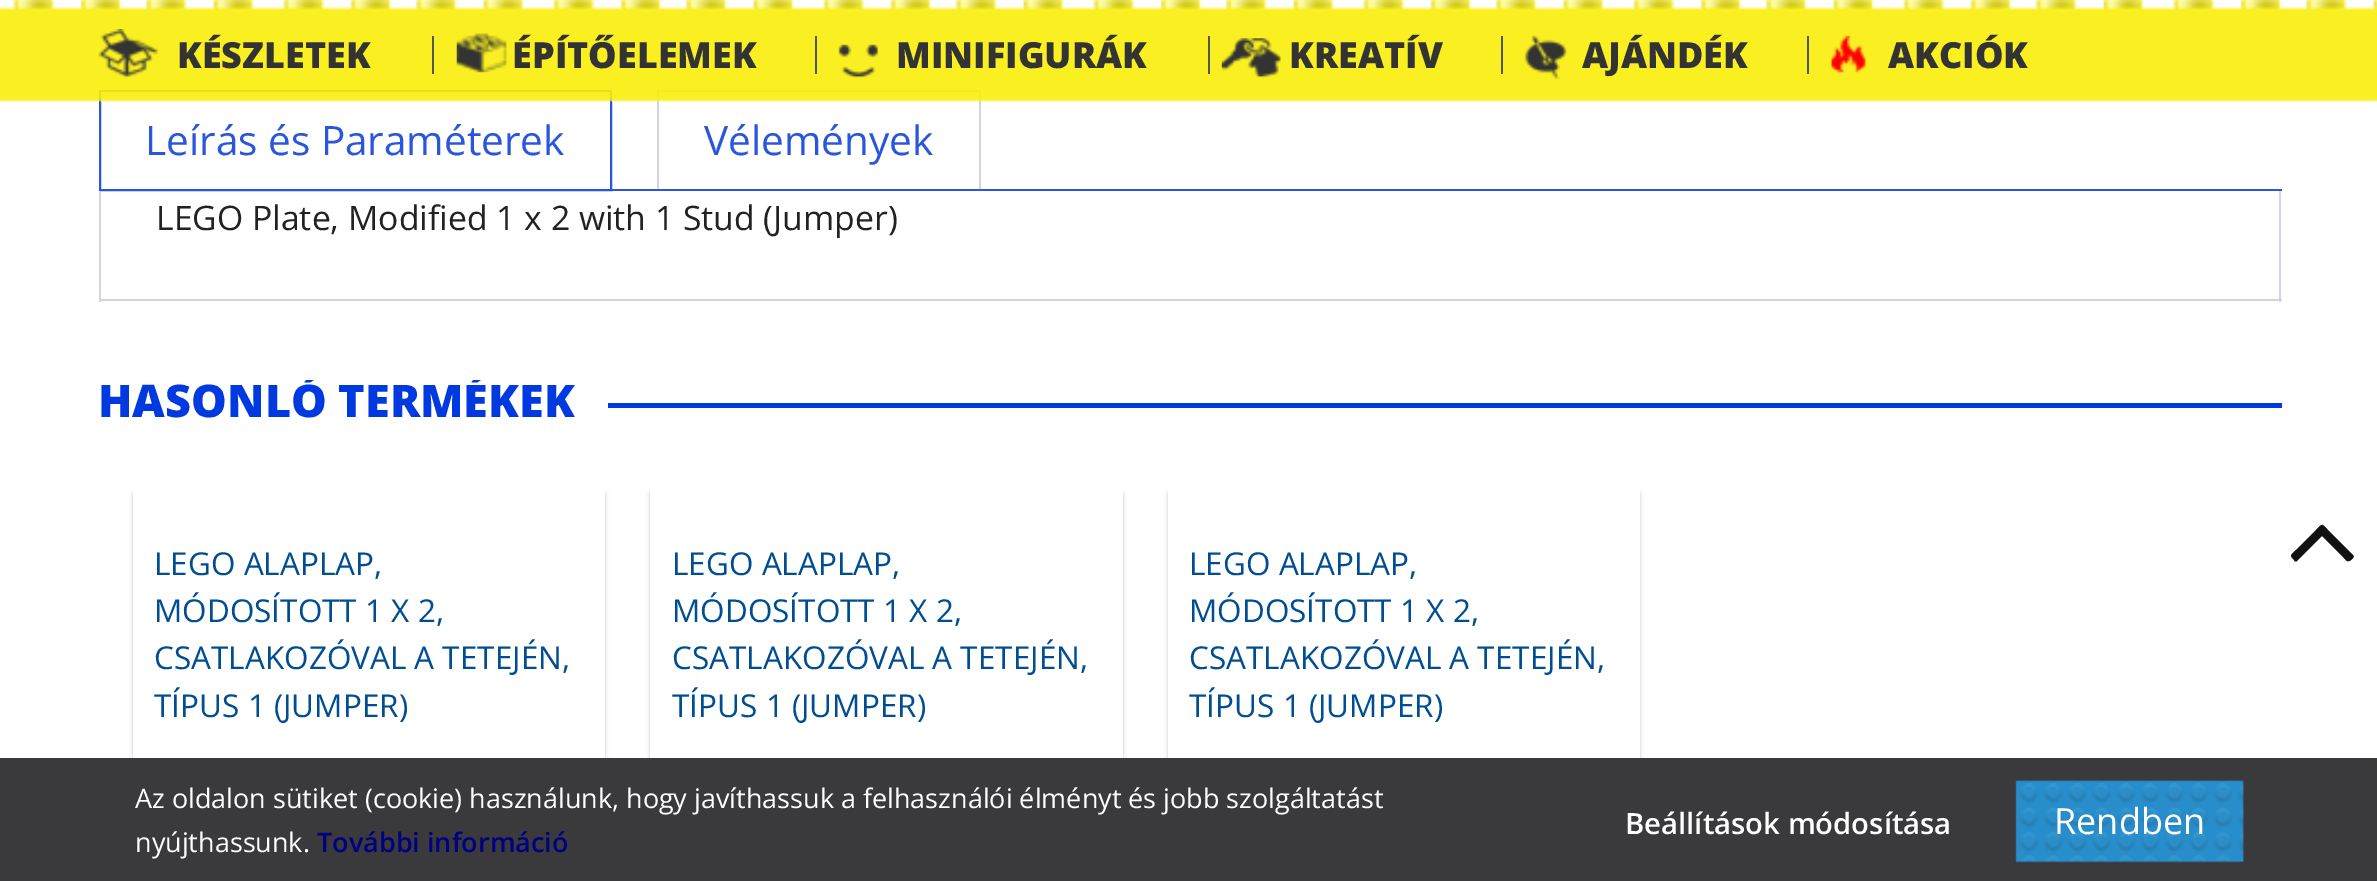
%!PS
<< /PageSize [2377 881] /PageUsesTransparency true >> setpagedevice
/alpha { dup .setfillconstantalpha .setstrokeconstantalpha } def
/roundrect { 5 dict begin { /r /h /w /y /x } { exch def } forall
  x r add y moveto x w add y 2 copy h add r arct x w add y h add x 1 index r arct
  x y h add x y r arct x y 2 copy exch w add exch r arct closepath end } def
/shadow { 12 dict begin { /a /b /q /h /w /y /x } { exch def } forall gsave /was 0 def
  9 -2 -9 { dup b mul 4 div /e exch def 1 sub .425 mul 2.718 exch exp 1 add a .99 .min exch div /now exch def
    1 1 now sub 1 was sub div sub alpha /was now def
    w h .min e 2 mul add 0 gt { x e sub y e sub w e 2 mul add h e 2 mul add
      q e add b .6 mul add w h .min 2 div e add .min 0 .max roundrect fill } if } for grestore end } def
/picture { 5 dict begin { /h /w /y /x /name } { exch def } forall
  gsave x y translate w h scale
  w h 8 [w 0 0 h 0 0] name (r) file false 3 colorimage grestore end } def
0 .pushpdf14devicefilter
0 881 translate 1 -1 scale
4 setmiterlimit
1 setgray
0 0 2377 881 rectfill
0.161 0.337 0.863 setrgbcolor
2 setlinewidth
100 91 511 99 rectstroke
0.824 0.835 0.871 setrgbcolor
979 90 2 99 rectfill
657 90 2 99 rectfill
(img1.rgb) 0 0 2377 102 picture
(img2.rgb) 98 29 60 49 picture
/OpenSans-ExtraBold [36 0 0 -36 0 0] selectfont
0.2 setgray
177 68 moveto (KÉSZLETEK) show
0.333 setgray
432 36 2 38 rectfill
(img3.rgb) 456 33 51 40 picture
0.2 setgray
512 68 moveto (ÉPÍTŐELEMEK) show
0.333 setgray
815 36 2 38 rectfill
(img4.rgb) 838 44 40 34 picture
0.2 setgray
896 68 moveto (MINIFIGURÁK) show
0.333 setgray
1208 36 2 38 rectfill
(img5.rgb) 1221 38 60 40 picture
0.2 setgray
1289 68 moveto (KREATÍV) show
0.333 setgray
1501 36 2 38 rectfill
(img6.rgb) 1524 35 43 45 picture
0.2 setgray
1582 68 moveto (AJÁNDÉK) show
0.333 setgray
1807 36 2 38 rectfill
(img7.rgb) 1830 35 36 38 picture
0.2 setgray
1888 68 moveto (AKCIÓK) show
0.161 0.337 0.863 setrgbcolor
612 189 1670 2 rectfill
/OpenSans-Regular [40.5 0 0 -40.5 0 0] selectfont
145 155 moveto (Leírás és Paraméterek) show
704 155 moveto (Vélemények) show
0.824 0.835 0.871 setrgbcolor
2279 191 2 111 rectfill
99 299 2183 2 rectfill
99 191 2 111 rectfill
/OpenSans-Regular [33.75 0 0 -33.75 0 0] selectfont
0.133 setgray
156 230 moveto (LEGO Plate, Modified 1 x 2 with 1 Stud \(Jumper\)) show
gsave
99 380 2183 90 rectclip
/OpenSans-ExtraBold [45 0 0 -45 0 0] selectfont
0 0.224 0.878 setrgbcolor
98 417 moveto (HASONLÓ TERMÉKEK) show
grestore
0 0.224 0.878 setrgbcolor
608 403 1674 5 rectfill
gsave
newpath 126 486 moveto 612 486 lineto 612 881 lineto 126 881 lineto closepath 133 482 moveto 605 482 lineto 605 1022 lineto 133 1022 lineto closepath eoclip newpath
0 setgray
133 493 472 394 0 2 0.2 shadow
grestore
/OpenSans-Regular [31.5 0 0 -31.5 0 0] selectfont
0 0.302 0.573 setrgbcolor
154 575 moveto (LEGO ALAPLAP,) show
154 622 moveto (MÓDOSÍTOTT 1 X 2,) show
154 669 moveto (CSATLAKOZÓVAL A TETEJÉN,) show
154 717 moveto (TÍPUS 1 \(JUMPER\)) show
gsave
newpath 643 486 moveto 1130 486 lineto 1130 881 lineto 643 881 lineto closepath 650 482 moveto 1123 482 lineto 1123 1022 lineto 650 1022 lineto closepath eoclip newpath
0 setgray
650 493 473 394 0 2 0.2 shadow
grestore
672 575 moveto (LEGO ALAPLAP,) show
672 622 moveto (MÓDOSÍTOTT 1 X 2,) show
672 669 moveto (CSATLAKOZÓVAL A TETEJÉN,) show
672 717 moveto (TÍPUS 1 \(JUMPER\)) show
gsave
newpath 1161 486 moveto 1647 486 lineto 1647 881 lineto 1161 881 lineto closepath 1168 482 moveto 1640 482 lineto 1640 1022 lineto 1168 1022 lineto closepath eoclip newpath
0 setgray
1168 493 472 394 0 2 0.2 shadow
grestore
1189 575 moveto (LEGO ALAPLAP,) show
1189 622 moveto (MÓDOSÍTOTT 1 X 2,) show
1189 669 moveto (CSATLAKOZÓVAL A TETEJÉN,) show
1189 717 moveto (TÍPUS 1 \(JUMPER\)) show
0.067 setgray
newpath 2353 555 moveto 2355 557 2352 559 2351 560 curveto 2347 563 2346 560 2343 557 curveto 2322 536 lineto 2297 561 lineto 2296 562 2294 561 2294 560 curveto 2289 555 2291 555 2296 550 curveto 2316 530 lineto 2323 523 2321 523 2328 530 curveto closepath fill
0.227 0.224 0.231 setrgbcolor
0 758 2377 123 rectfill
/OpenSans-Regular [27 0 0 -27 0 0] selectfont
1 setgray
135 808 moveto (Az oldalon sütiket \(cookie\) használunk, hogy javíthassuk a felhasználói élményt és jobb szolgáltatást) show
135 852 moveto (nyújthassunk.) show
/OpenSans-SemiBold [27 0 0 -27 0 0] selectfont
0 0 0.502 setrgbcolor
317 852 moveto (További információ) show
/OpenSans-SemiBold [29.25 0 0 -29.25 0 0] selectfont
1 setgray
1625 834 moveto (Beállítások módosítása) show
(img8.rgb) 2015 780 229 83 picture
/OpenSans-Regular [36 0 0 -36 0 0] selectfont
2054 834 moveto (Rendben) show
.poppdf14devicefilter showpage
